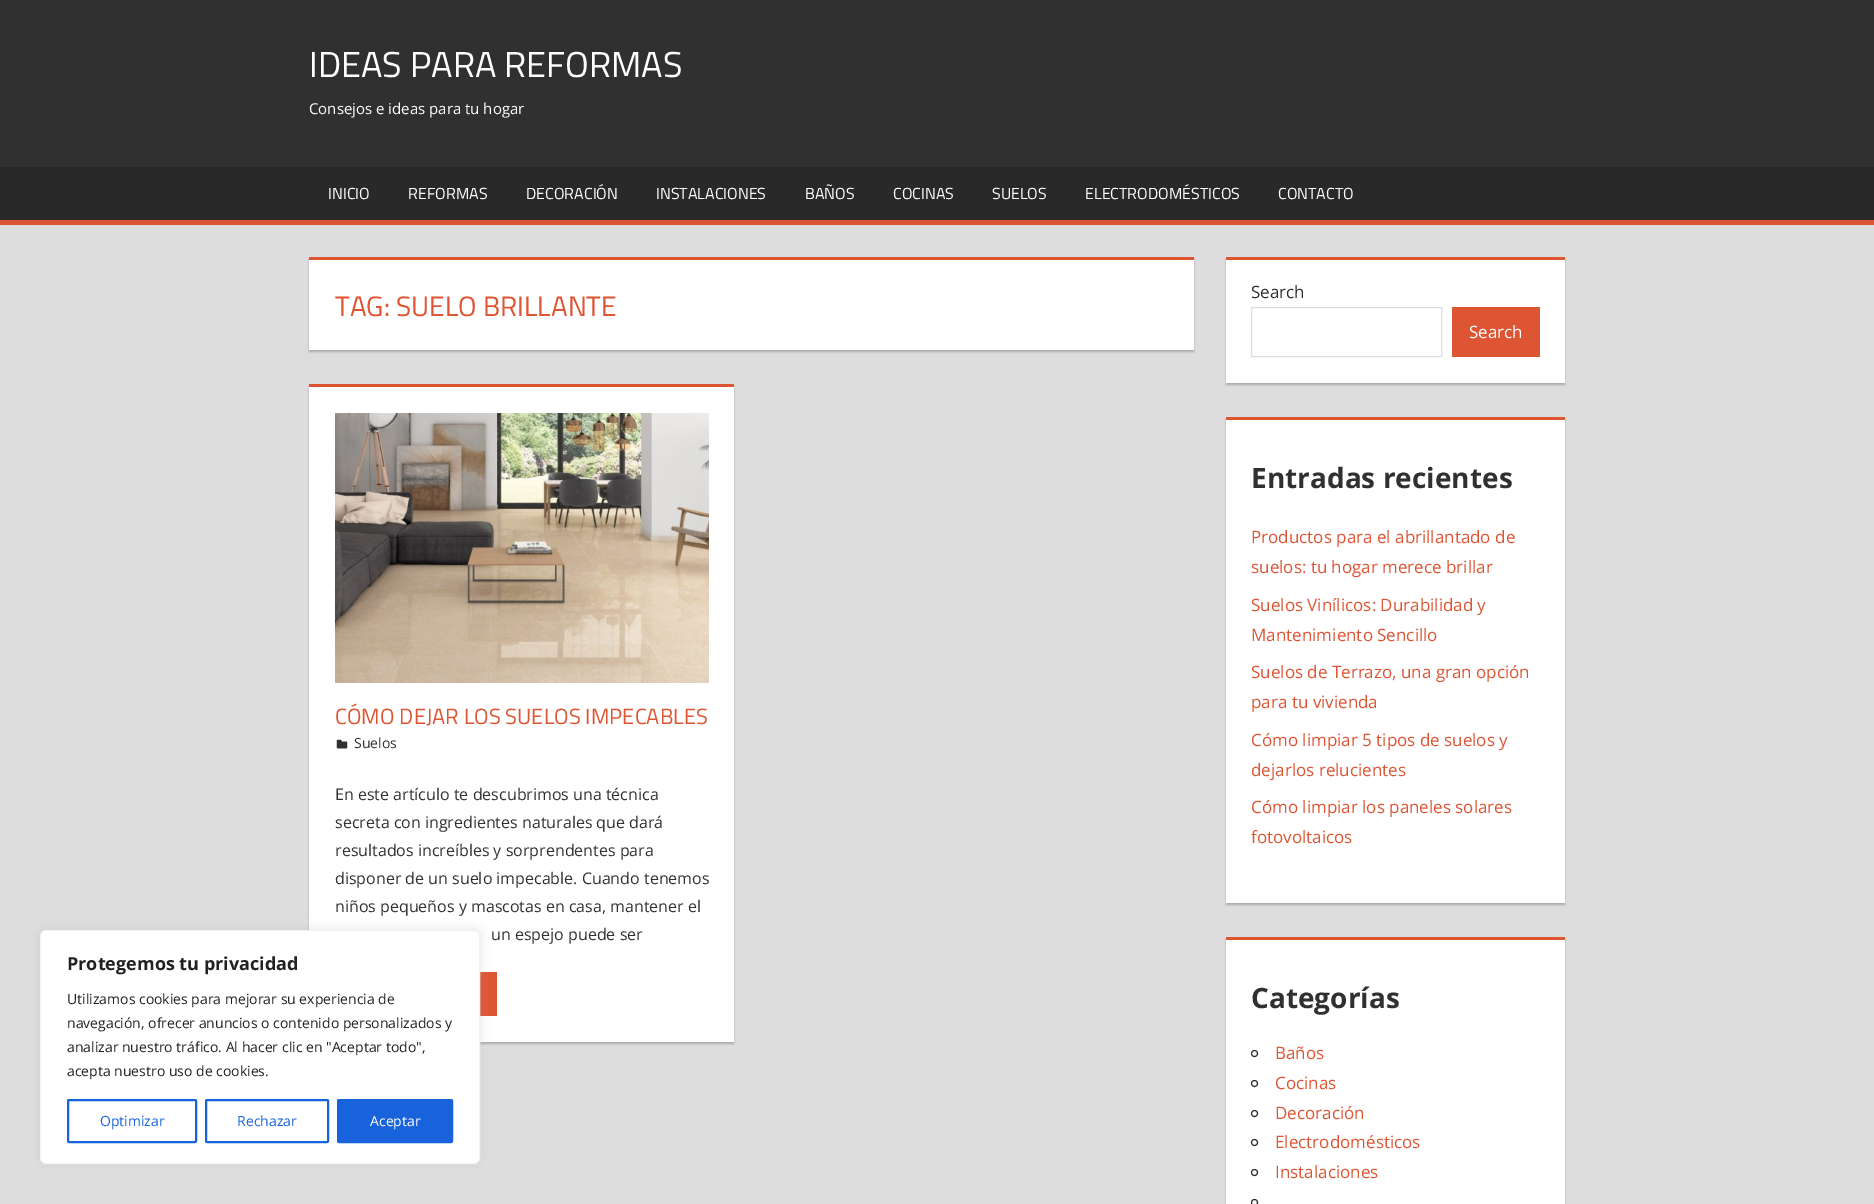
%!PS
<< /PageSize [1874 1204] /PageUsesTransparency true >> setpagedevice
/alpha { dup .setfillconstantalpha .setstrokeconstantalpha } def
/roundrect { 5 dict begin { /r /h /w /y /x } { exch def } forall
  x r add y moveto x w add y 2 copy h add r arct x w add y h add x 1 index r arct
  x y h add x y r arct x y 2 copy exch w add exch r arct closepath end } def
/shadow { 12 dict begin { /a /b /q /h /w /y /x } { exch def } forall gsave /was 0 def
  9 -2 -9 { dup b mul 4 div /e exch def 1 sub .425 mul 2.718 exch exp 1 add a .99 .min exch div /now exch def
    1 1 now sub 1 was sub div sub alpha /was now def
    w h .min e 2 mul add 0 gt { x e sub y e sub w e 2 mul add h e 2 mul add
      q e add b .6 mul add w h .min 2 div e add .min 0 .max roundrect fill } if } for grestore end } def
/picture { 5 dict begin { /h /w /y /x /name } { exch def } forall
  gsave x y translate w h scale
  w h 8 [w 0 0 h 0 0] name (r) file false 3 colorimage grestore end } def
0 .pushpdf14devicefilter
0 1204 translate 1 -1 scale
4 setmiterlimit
0.867 setgray
0 0 1874 1204 rectfill
0.667 setgray
309 386 425 658 0 1 1 shadow
1 setgray
309 387 425 655 rectfill
0.867 0.333 0.2 setrgbcolor
480 972 17 44 rectfill
0.675 0.671 0.671 setrgbcolor
40 929 440 234 6 5 0.3 shadow
1 setgray
40.5 930.5 439 233 5.5 roundrect gsave fill grestore
0.957 setgray
stroke
/OpenSans-Bold [18 0 0 -18 0 0] selectfont
0.129 setgray
67 970 moveto (Protegemos tu privacidad) show
/OpenSans-Regular [14 0 0 -14 0 0] selectfont
67 1004 moveto (Utilizamos cookies para mejorar su experiencia de) show
67 1028 moveto (navegación, ofrecer anuncios o contenido personalizados y) show
67 1052 moveto (analizar nuestro tráfico. Al hacer clic en "Aceptar todo",) show
67 1076 moveto (acepta nuestro uso de cookies.) show
0.094 0.388 0.863 setrgbcolor
2 setlinewidth
68 1100 128 42 1 roundrect stroke
100 1126 moveto (Optimizar) show
206 1100 122 42 1 roundrect stroke
237 1126 moveto (Rechazar) show
338 1100 114 42 1 roundrect gsave fill grestore
stroke
1 setgray
370 1126 moveto (Aceptar) show
0.188 setgray
0 0 1874 167 rectfill
/TitilliumWeb-Regular [36 0 0 -36 0 0] selectfont
1 setgray
309 77 moveto (IDEAS PARA REFORMAS) show
/OpenSans-Regular [15 0 0 -15 0 0] selectfont
309 114 moveto (Consejos e ideas para tu hogar) show
0.161 setgray
0 168 1874 52 rectfill
0.153 setgray
0 167 1874 1 rectfill
0.867 0.333 0.2 setrgbcolor
0 220 1874 5 rectfill
/TitilliumWeb-Regular [16 0 0 -16 0 0] selectfont
1 setgray
328 199 moveto (INICIO) show
408 199 moveto (REFORMAS) show
526 199 moveto (DECORACIÓN) show
656 199 moveto (INSTALACIONES) show
805 199 moveto (BAÑOS) show
893 199 moveto (COCINAS) show
992 199 moveto (SUELOS) show
1085 199 moveto (ELECTRODOMÉSTICOS) show
1278 199 moveto (CONTACTO) show
0.667 setgray
309 259 885 93 0 1 1 shadow
1 setgray
309 260 885 90 rectfill
0.867 0.333 0.2 setrgbcolor
309 257 885 3 rectfill
/TitilliumWeb-Regular [28 0 0 -28 0 0] selectfont
335 316 moveto (TAG: SUELO BRILLANTE) show
309 384 425 3 rectfill
(img1.rgb) 335 413 374 270 picture
/TitilliumWeb-Regular [22 0 0 -22 0 0] selectfont
335 724 moveto (CÓMO DEJAR LOS SUELOS IMPECABLES) show
(img2.rgb) 336 739 12 10 picture
/OpenSans-Regular [14 0 0 -14 0 0] selectfont
0.188 setgray
354 748 moveto (Suelos) show
/OpenSans-Regular [16 0 0 -16 0 0] selectfont
335 800 moveto (En este artículo te descubrimos una técnica) show
335 828 moveto (secreta con ingredientes naturales que dará) show
335 856 moveto (resultados increíbles y sorprendentes para) show
335 884 moveto (disponer de un suelo impecable. Cuando tenemos) show
335 912 moveto (niños pequeños y mascotas en casa, mantener el) show
491 940 moveto (un espejo puede ser) show
0.667 setgray
1226 259 339 126 0 1 1 shadow
1 setgray
1226 260 339 123 rectfill
0.867 0.333 0.2 setrgbcolor
1226 257 339 3 rectfill
/OpenSans-Regular [17 0 0 -17 0 0] selectfont
0.188 setgray
1251 298 moveto (Search) show
0.867 setgray
1 setlinewidth
1251.5 307.5 190 49 rectstroke
0.867 0.333 0.2 setrgbcolor
1452 307 88 50 rectfill
1 setgray
1469 338 moveto (Search) show
0.667 setgray
1226 419 339 486 0 1 1 shadow
1 setgray
1226 420 339 483 rectfill
0.867 0.333 0.2 setrgbcolor
1226 417 339 3 rectfill
/OpenSans-Bold [28 0 0 -28 0 0] selectfont
0.188 setgray
1251 488 moveto (Entradas recientes) show
/OpenSans-Regular [17 0 0 -17 0 0] selectfont
0.867 0.333 0.2 setrgbcolor
1251 543 moveto (Productos para el abrillantado de) show
1251 573 moveto (suelos: tu hogar merece brillar) show
1251 611 moveto (Suelos Vinílicos: Durabilidad y) show
1251 641 moveto (Mantenimiento Sencillo) show
1251 678 moveto (Suelos de Terrazo, una gran opción) show
1251 708 moveto (para tu vivienda) show
1251 746 moveto (Cómo limpiar 5 tipos de suelos y) show
1251 776 moveto (dejarlos relucientes) show
1251 813 moveto (Cómo limpiar los paneles solares) show
1251 843 moveto (fotovoltaicos) show
0.667 setgray
1226 939 339 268 0 1 1 shadow
1 setgray
1226 940 339 264 rectfill
0.867 0.333 0.2 setrgbcolor
1226 937 339 3 rectfill
/OpenSans-Bold [28 0 0 -28 0 0] selectfont
0.188 setgray
1251 1008 moveto (Categorías) show
newpath 1254.5 1053.5 3 0 360 arc closepath stroke
/OpenSans-Regular [17 0 0 -17 0 0] selectfont
0.867 0.333 0.2 setrgbcolor
1275 1059 moveto (Baños) show
0.188 setgray
newpath 1254.5 1083.5 3 0 360 arc closepath stroke
0.867 0.333 0.2 setrgbcolor
1275 1089 moveto (Cocinas) show
0.188 setgray
newpath 1254.5 1113.5 3 0 360 arc closepath stroke
0.867 0.333 0.2 setrgbcolor
1275 1119 moveto (Decoración) show
0.188 setgray
newpath 1254.5 1142.5 3 0 360 arc closepath stroke
0.867 0.333 0.2 setrgbcolor
1275 1148 moveto (Electrodomésticos) show
0.188 setgray
newpath 1254.5 1172.5 3 0 360 arc closepath stroke
0.867 0.333 0.2 setrgbcolor
1275 1178 moveto (Instalaciones) show
0.188 setgray
newpath 1254.5 1202.5 3 0 360 arc closepath stroke
.poppdf14devicefilter showpage
